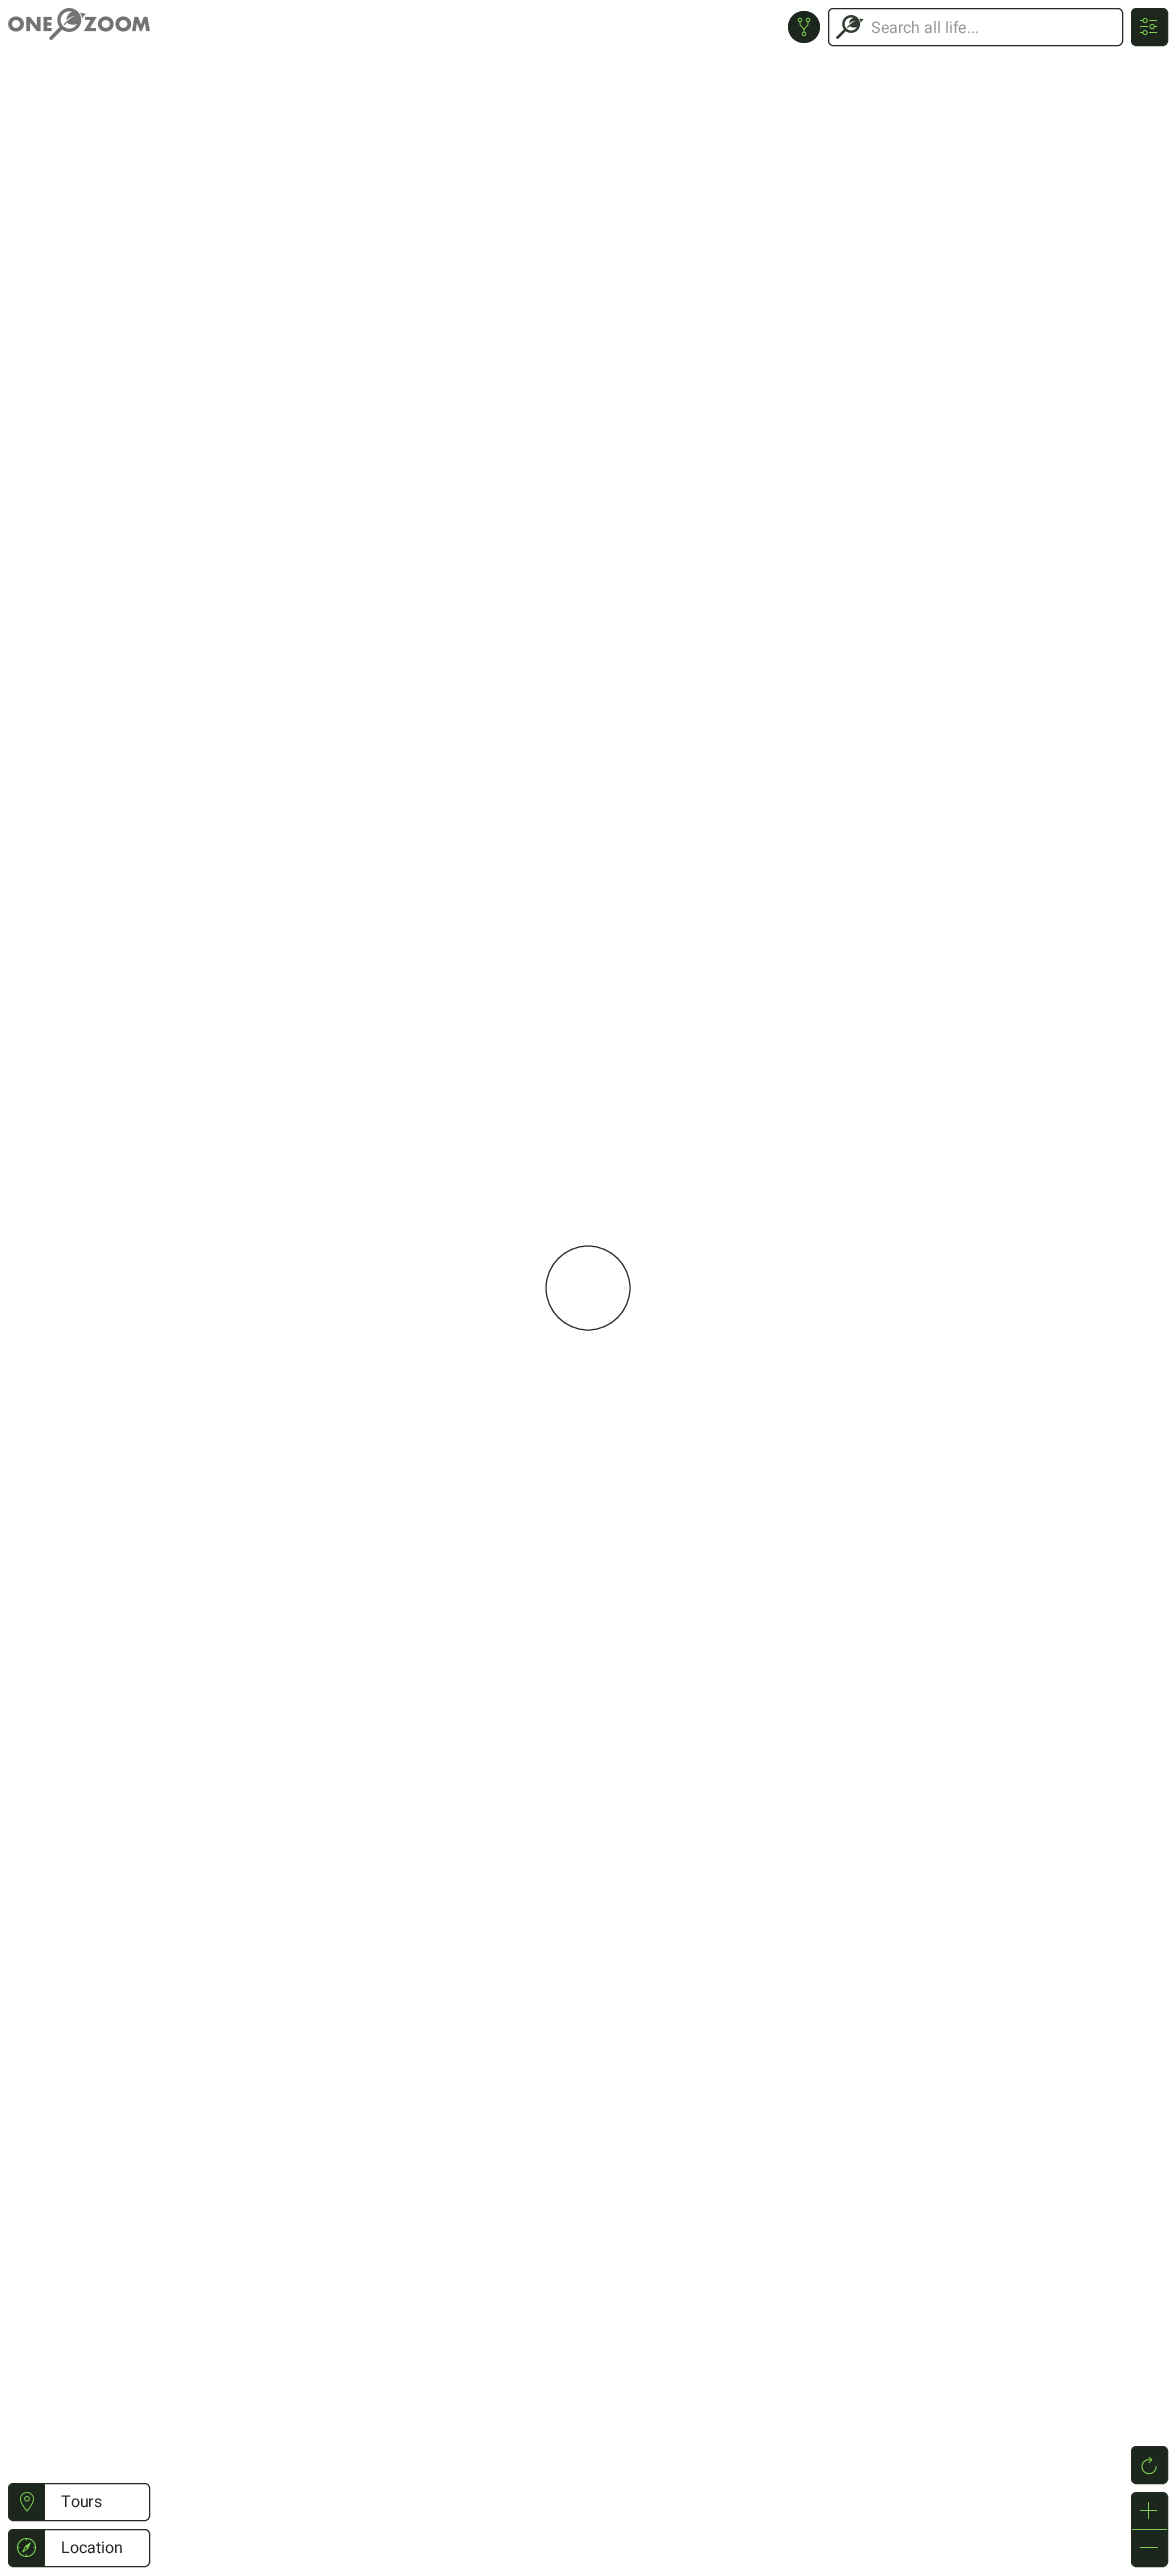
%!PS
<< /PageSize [1176 2575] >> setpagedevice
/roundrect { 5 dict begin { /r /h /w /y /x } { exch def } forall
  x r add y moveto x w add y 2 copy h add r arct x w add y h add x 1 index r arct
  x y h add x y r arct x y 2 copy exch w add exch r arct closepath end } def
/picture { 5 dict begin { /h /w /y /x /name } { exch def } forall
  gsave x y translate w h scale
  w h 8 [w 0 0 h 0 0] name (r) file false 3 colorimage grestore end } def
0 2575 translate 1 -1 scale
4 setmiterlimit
1 setgray
0 0 1176 2575 rectfill
(img1.rgb) 8 8 142 32 picture
0.11 0.149 0.11 setrgbcolor
newpath 804 27 16 0 360 arc closepath fill
(img2.rgb) 797 17 14 20 picture
0.141 0.165 0.133 setrgbcolor
828.5 8.5 294 37 4.5 roundrect stroke
(img3.rgb) 836 15 28 24 picture
/Roboto-Regular [16 0 0 -16 0 0] selectfont
0.6 setgray
871 33 moveto (Search all life...) show
0.141 0.165 0.133 setrgbcolor
1131.5 8.5 36 37 4.5 roundrect stroke
0.11 0.149 0.11 setrgbcolor
1132 9 35 36 4 roundrect fill
(img4.rgb) 1140 17 17 19 picture
0.141 0.165 0.133 setrgbcolor
1 setlinecap
newpath 588 1246 moveto 611 1246 630 1265 630 1288 curveto 630 1311 611 1330 588 1330 curveto 565 1330 546 1311 546 1288 curveto 546 1265 565 1246 588 1246 curveto stroke
0 setlinecap
8.5 2483.5 141 37 4.5 roundrect stroke
0.11 0.149 0.11 setrgbcolor
newpath 13 2484 moveto 45 2484 lineto 45 2520 lineto 13 2520 lineto 11 2520 9 2518 9 2516 curveto 9 2488 lineto 9 2486 11 2484 13 2484 curveto closepath fill
0.141 0.165 0.133 setrgbcolor
44 2484 1 36 rectfill
(img5.rgb) 20 2492 14 20 picture
61 2507 moveto (Tours) show
8.5 2529.5 141 37 4.5 roundrect stroke
0.11 0.149 0.11 setrgbcolor
newpath 13 2530 moveto 45 2530 lineto 45 2566 lineto 13 2566 lineto 11 2566 9 2564 9 2562 curveto 9 2534 lineto 9 2532 11 2530 13 2530 curveto closepath fill
0.141 0.165 0.133 setrgbcolor
44 2530 1 36 rectfill
(img6.rgb) 17 2538 20 20 picture
61 2553 moveto (Location) show
1131.5 2446.5 36 37 4.5 roundrect stroke
0.11 0.149 0.11 setrgbcolor
1132 2447 35 36 4 roundrect fill
(img7.rgb) 1141 2456 16 19 picture
0.141 0.165 0.133 setrgbcolor
1131.5 2492.5 36 74 4.5 roundrect stroke
0.11 0.149 0.11 setrgbcolor
newpath 1136 2493 moveto 1163 2493 lineto 1165 2493 1167 2495 1167 2497 curveto 1167 2529 lineto 1132 2529 lineto 1132 2497 lineto 1132 2495 1134 2493 1136 2493 curveto closepath fill
0.498 0.82 0.31 setrgbcolor
1148 2502 1 17 rectfill
1140 2510 17 1 rectfill
0.11 0.149 0.11 setrgbcolor
newpath 1132 2529 moveto 1167 2529 lineto 1167 2562 lineto 1167 2564 1165 2566 1163 2566 curveto 1136 2566 lineto 1134 2566 1132 2564 1132 2562 curveto closepath fill
0.498 0.82 0.31 setrgbcolor
1132 2529 35 1 rectfill
1140 2547 18 1 rectfill
showpage
